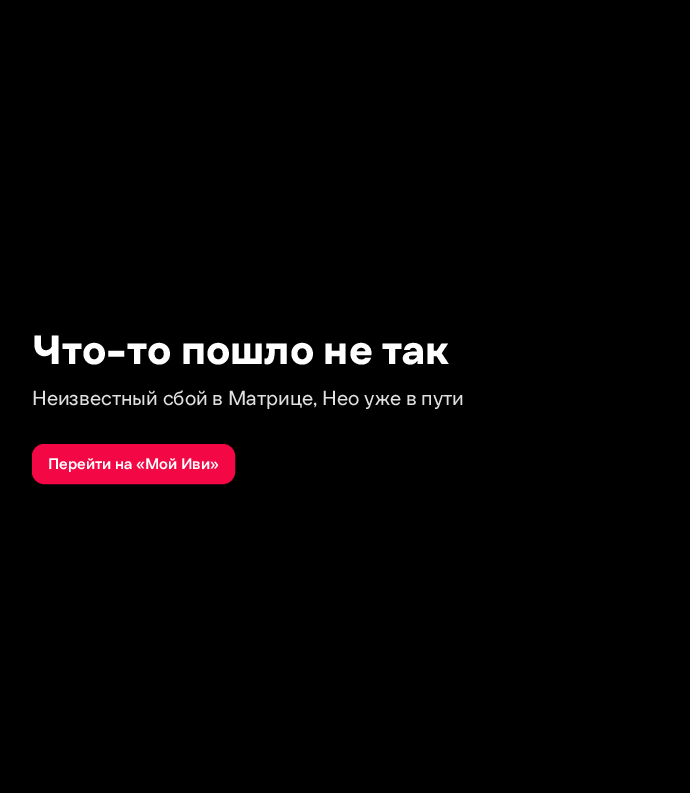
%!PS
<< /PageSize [690 793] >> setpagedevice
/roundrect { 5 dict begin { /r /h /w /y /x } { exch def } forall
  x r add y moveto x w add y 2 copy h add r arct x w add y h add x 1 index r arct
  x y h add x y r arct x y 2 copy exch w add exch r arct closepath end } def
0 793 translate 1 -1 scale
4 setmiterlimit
0 setgray
0 0 690 793 rectfill
/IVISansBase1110-Bold [40 0 0 -40 0 0] selectfont
1 setgray
32 364 moveto (Что-то пошло не так) show
/IVISansBase1110-Regular [20 0 0 -20 0 0] selectfont
0.878 setgray
32 405 moveto (Неизвестный сбой в Матрице, Нео уже в пути) show
0.953 0.027 0.271 setrgbcolor
32.5 444.5 202 39 11.5 roundrect gsave fill grestore
stroke
/IVISansBase1110-Medium [15 0 0 -15 0 0] selectfont
1 setgray
48 469 moveto (Перейти на «Мой Иви») show
showpage
